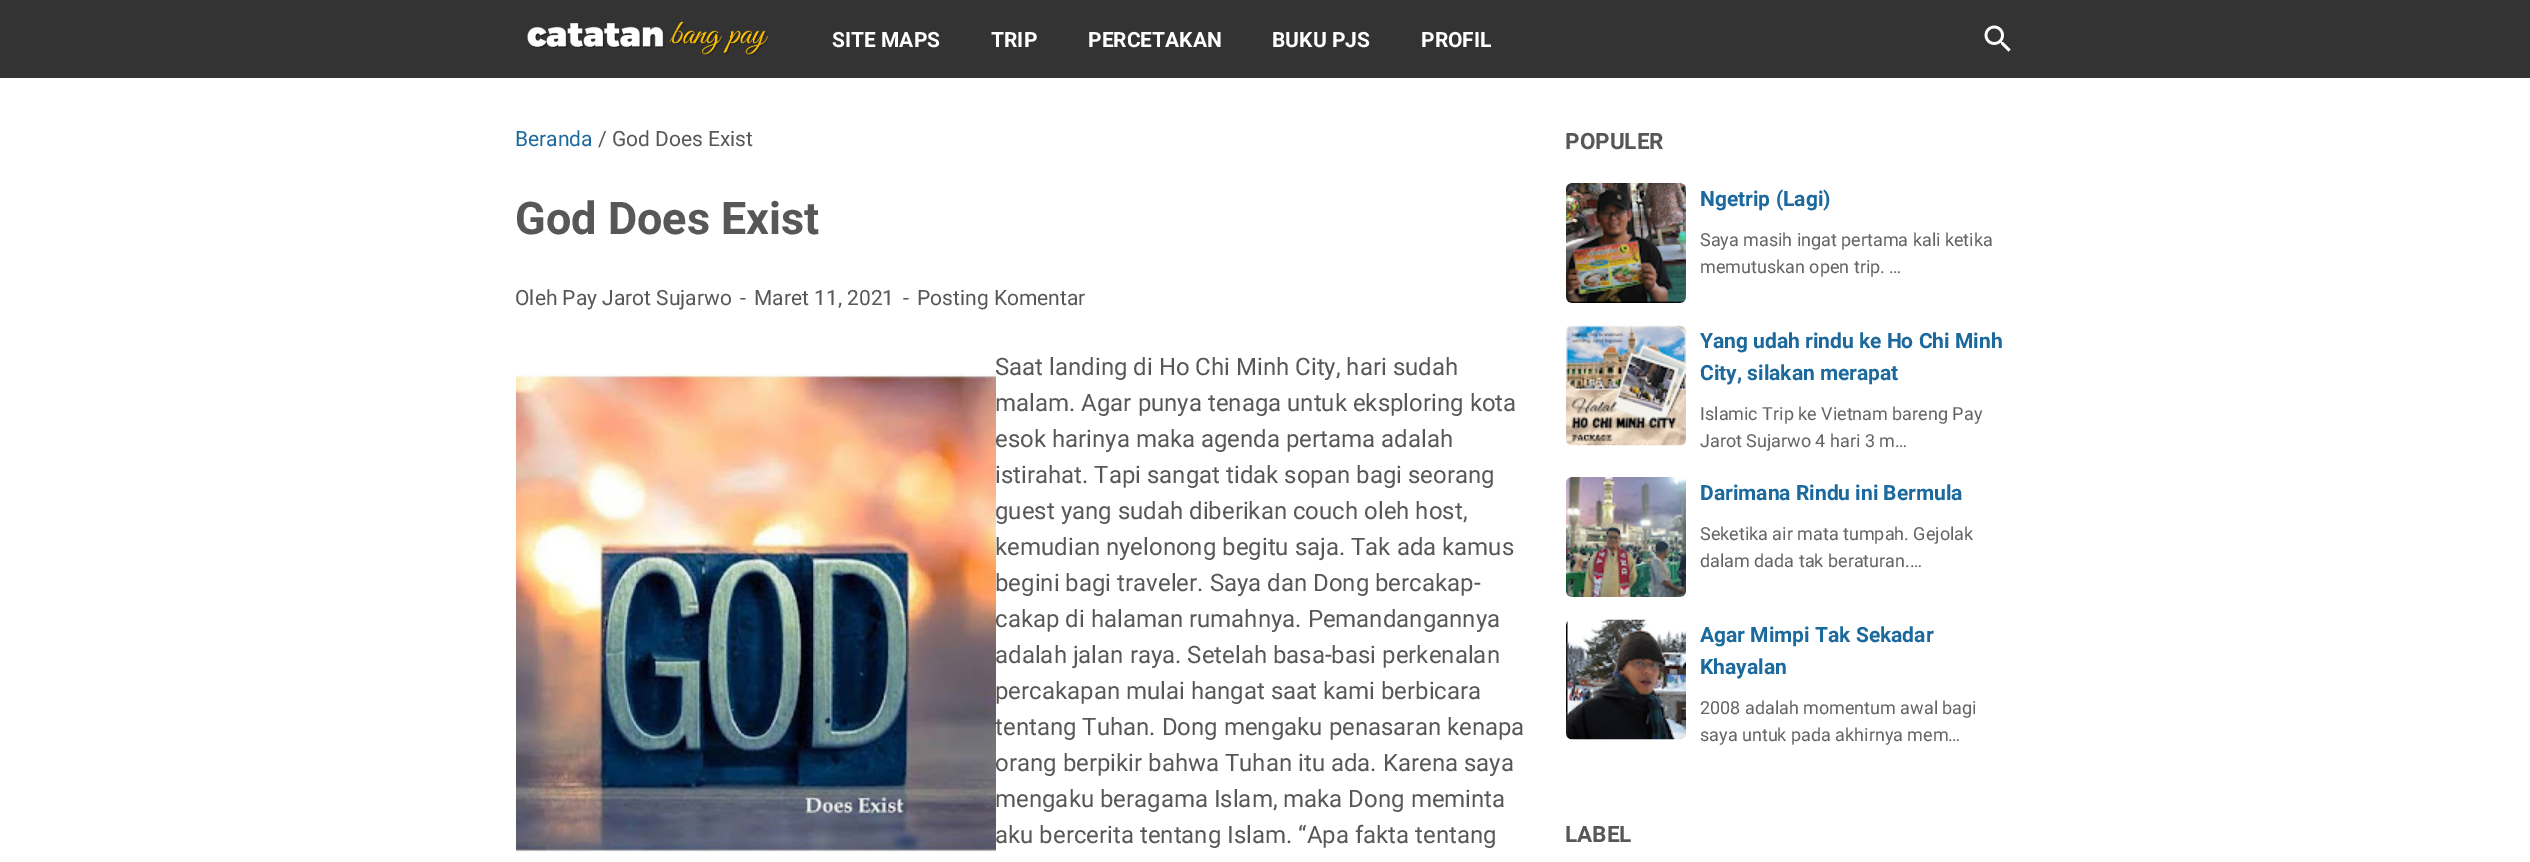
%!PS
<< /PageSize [2530 862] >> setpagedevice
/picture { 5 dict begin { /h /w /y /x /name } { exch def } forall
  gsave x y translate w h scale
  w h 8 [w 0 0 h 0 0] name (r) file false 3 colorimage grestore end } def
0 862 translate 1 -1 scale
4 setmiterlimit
1 setgray
0 0 2530 862 rectfill
0.2 setgray
0 0 2530 78 rectfill
(img1.rgb) 527 21 242 35 picture
/Roboto-Bold [21 0 0 -21 0 0] selectfont
1 setgray
832 47 moveto (SITE MAPS) show
991 47 moveto (TRIP) show
1088 47 moveto (PERCETAKAN) show
1272 47 moveto (BUKU PJS) show
1421 47 moveto (PROFIL) show
(img2.rgb) 1984 25 27 27 picture
/Roboto-Regular [21 0 0 -21 0 0] selectfont
0.106 0.412 0.616 setrgbcolor
515 146 moveto (Beranda) show
0.341 setgray
598 146 moveto (/ God Does Exist) show
/Roboto-Bold [45 0 0 -45 0 0] selectfont
515 234 moveto (God Does Exist) show
/Roboto-Regular [21 0 0 -21 0 0] selectfont
515 305 moveto (Oleh Pay Jarot Sujarwo) show
740 305 moveto (-) show
754 305 moveto (Maret 11, 2021) show
903 305 moveto (-) show
917 305 moveto (Posting Komentar) show
/Roboto-Regular [24 0 0 -24 0 0] selectfont
995 375 moveto (Saat landing di Ho Chi Minh City, hari sudah) show
(img3.rgb) 516 373 480 480 picture
995 411 moveto (malam. Agar punya tenaga untuk eksploring kota) show
995 447 moveto (esok harinya maka agenda pertama adalah) show
995 483 moveto (istirahat. Tapi sangat tidak sopan bagi seorang) show
995 519 moveto (guest yang sudah diberikan couch oleh host,) show
995 555 moveto (kemudian nyelonong begitu saja. Tak ada kamus) show
995 591 moveto (begini bagi traveler. Saya dan Dong bercakap-) show
995 627 moveto (cakap di halaman rumahnya. Pemandangannya) show
995 663 moveto (adalah jalan raya. Setelah basa-basi perkenalan) show
995 699 moveto (percakapan mulai hangat saat kami berbicara) show
995 735 moveto (tentang Tuhan. Dong mengaku penasaran kenapa) show
995 771 moveto (orang berpikir bahwa Tuhan itu ada. Karena saya) show
995 807 moveto (mengaku beragama Islam, maka Dong meminta) show
995 843 moveto (aku bercerita tentang Islam. “Apa fakta tentang) show
/Roboto-Bold [22.5 0 0 -22.5 0 0] selectfont
1565 149 moveto (POPULER) show
(img4.rgb) 1566 183 120 120 picture
/Roboto-Bold [21 0 0 -21 0 0] selectfont
0.106 0.412 0.616 setrgbcolor
1700 206 moveto (Ngetrip \(Lagi\)) show
/Roboto-Regular [18 0 0 -18 0 0] selectfont
0.392 setgray
1700 246 moveto (Saya masih ingat pertama kali ketika) show
1700 273 moveto (memutuskan open trip. …) show
(img5.rgb) 1566 325 120 121 picture
/Roboto-Bold [21 0 0 -21 0 0] selectfont
0.106 0.412 0.616 setrgbcolor
1700 348 moveto (Yang udah rindu ke Ho Chi Minh) show
1700 380 moveto (City, silakan merapat) show
/Roboto-Regular [18 0 0 -18 0 0] selectfont
0.392 setgray
1700 420 moveto (Islamic Trip ke Vietnam bareng Pay) show
1700 447 moveto (Jarot Sujarwo 4 hari 3 m…) show
(img6.rgb) 1566 477 120 120 picture
/Roboto-Bold [21 0 0 -21 0 0] selectfont
0.106 0.412 0.616 setrgbcolor
1700 500 moveto (Darimana Rindu ini Bermula) show
/Roboto-Regular [18 0 0 -18 0 0] selectfont
0.392 setgray
1700 540 moveto (Seketika air mata tumpah. Gejolak) show
1700 567 moveto (dalam dada tak beraturan.…) show
(img7.rgb) 1566 619 120 121 picture
/Roboto-Bold [21 0 0 -21 0 0] selectfont
0.106 0.412 0.616 setrgbcolor
1700 642 moveto (Agar Mimpi Tak Sekadar) show
1700 674 moveto (Khayalan) show
/Roboto-Regular [18 0 0 -18 0 0] selectfont
0.392 setgray
1700 714 moveto (2008 adalah momentum awal bagi) show
1700 741 moveto (saya untuk pada akhirnya mem…) show
/Roboto-Bold [22.5 0 0 -22.5 0 0] selectfont
0.341 setgray
1565 842 moveto (LABEL) show
showpage
